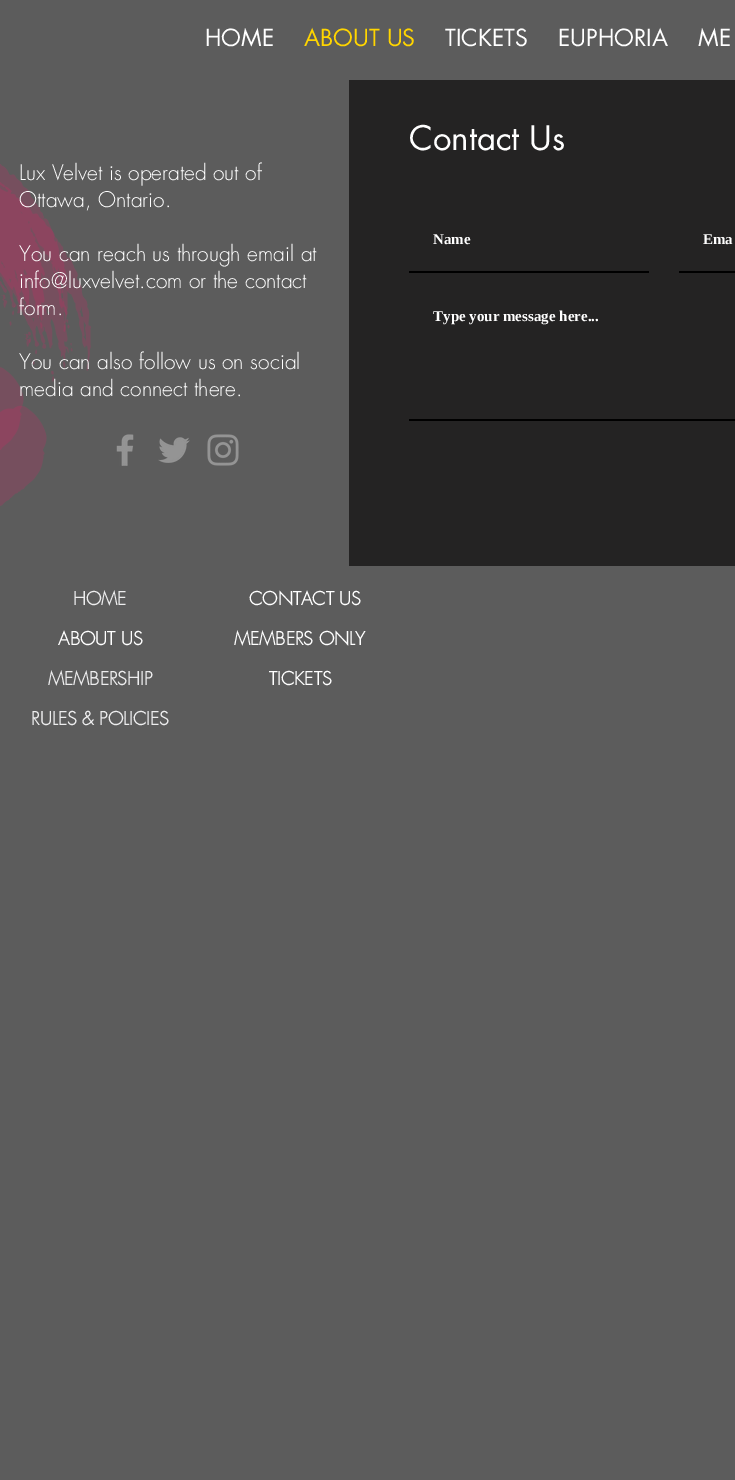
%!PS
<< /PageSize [735 1480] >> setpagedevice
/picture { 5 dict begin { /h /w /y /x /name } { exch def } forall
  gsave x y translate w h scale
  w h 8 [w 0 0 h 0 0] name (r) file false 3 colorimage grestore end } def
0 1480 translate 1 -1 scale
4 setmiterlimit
0.361 setgray
0 0 735 1480 rectfill
/futura-Regular [23 0 0 -23 0 0] selectfont
1 setgray
205 46 moveto (HOME) show
1 0.835 0 setrgbcolor
304 46 moveto (ABOUT US) show
1 setgray
445 46 moveto (TICKETS) show
558 46 moveto (EUPHORIA) show
698 46 moveto (ME) show
(img2.rgb) 0 182 91 324 picture
(img1.rgb) 0 164 68 286 picture
/futura-Light [21 0 0 -21 0 0] selectfont
19 180 moveto (Lux Velvet is operated out of) show
19 207 moveto (Ottawa, Ontario.) show
19 261 moveto (You can reach us through email at) show
19 288 moveto (info@luxvelvet.com or the contact) show
19 315 moveto (form.) show
19 369 moveto (You can also follow us on social) show
19 396 moveto (media and connect there.) show
0.141 0.137 0.137 setrgbcolor
349 80 386 486 rectfill
/futura-Regular [33 0 0 -33 0 0] selectfont
1 setgray
409 150 moveto (Contact Us) show
0 setgray
409 271 240 2 rectfill
/LiberationSerif-Bold [15 0 0 -15 0 0] selectfont
1 setgray
433 244 moveto (Name) show
0 setgray
679 271 56 2 rectfill
1 setgray
703 244 moveto (Ema) show
0 setgray
409 419 326 2 rectfill
1 setgray
433 321 moveto (Type your message here...) show
(img3.rgb) 116 434 18 32 picture
(img4.rgb) 158 437 32 26 picture
(img5.rgb) 207 434 32 32 picture
/futura-Bold [18 0 0 -18 0 0] selectfont
0.929 0.929 0.933 setrgbcolor
73 605 moveto (HOME) show
1 setgray
249 605 moveto (CONTACT US) show
58 645 moveto (ABOUT US) show
234 645 moveto (MEMBERS ONLY) show
0.929 0.929 0.933 setrgbcolor
48 685 moveto (MEMBERSHIP) show
1 setgray
269 685 moveto (TICKETS) show
0.929 0.929 0.933 setrgbcolor
31 725 moveto (RULES & POLICIES) show
showpage
